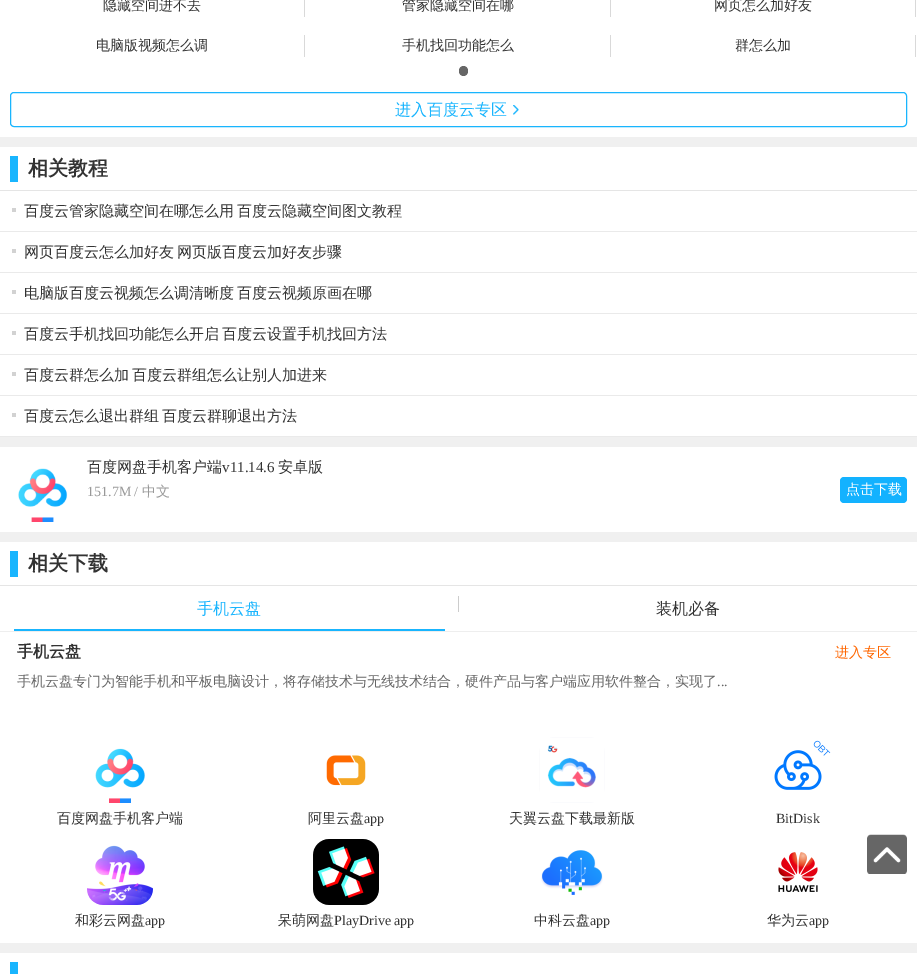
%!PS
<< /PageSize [917 974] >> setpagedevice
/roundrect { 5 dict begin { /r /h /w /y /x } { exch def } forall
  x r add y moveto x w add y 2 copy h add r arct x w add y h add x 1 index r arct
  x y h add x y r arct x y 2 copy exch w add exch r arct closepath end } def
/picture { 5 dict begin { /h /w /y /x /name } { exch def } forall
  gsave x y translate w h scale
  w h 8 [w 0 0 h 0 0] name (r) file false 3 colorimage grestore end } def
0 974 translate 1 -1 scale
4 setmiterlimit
0.941 setgray
0 0 917 974 rectfill
1 setgray
0 0 917 137 rectfill
0.851 setgray
304 0 1 17 rectfill
/WenQuanYiZenHei-Medium [14 0 0 -14 0 0] selectfont
0.2 setgray
103 10 moveto (隐藏空间进不去) show
0.851 setgray
610 0 1 17 rectfill
0.2 setgray
402 10 moveto (管家隐藏空间在哪) show
0.851 setgray
915 0 1 17 rectfill
0.2 setgray
714 10 moveto (网页怎么加好友) show
0.851 setgray
304 35 1 22 rectfill
0.2 setgray
96 50 moveto (电脑版视频怎么调) show
0.851 setgray
610 35 1 22 rectfill
0.2 setgray
402 50 moveto (手机找回功能怎么) show
0.851 setgray
915 35 1 22 rectfill
0.2 setgray
735 50 moveto (群怎么加) show
0.4 setgray
459 66 9 10 4.5 roundrect fill
0.098 0.71 0.996 setrgbcolor
10.5 92.5 896 34 3.5 roundrect stroke
/WenQuanYiZenHei-Medium [16 0 0 -16 0 0] selectfont
395 115 moveto (进入百度云专区) show
(img1.rgb) 513 105 6 10 picture
1 setgray
0 147 917 289 rectfill
0.898 setgray
0 190 917 1 rectfill
0.098 0.71 0.996 setrgbcolor
10 156 8 26 rectfill
/WenQuanYiZenHei-Bold [20 0 0 -20 0 0] selectfont
0.2 setgray
28 175 moveto (相关教程) show
0.918 setgray
0 231 917 1 rectfill
0.824 setgray
12 208 4 4 rectfill
/WenQuanYiZenHei-Medium [15 0 0 -15 0 0] selectfont
0.2 setgray
24 216 moveto -1 0 32 (百度云管家隐藏空间在哪怎么用 百度云隐藏空间图文教程) widthshow
0.918 setgray
0 272 917 1 rectfill
0.824 setgray
12 249 4 4 rectfill
0.2 setgray
24 257 moveto -1 0 32 (网页百度云怎么加好友 网页版百度云加好友步骤) widthshow
0.918 setgray
0 313 917 1 rectfill
0.824 setgray
12 290 4 4 rectfill
0.2 setgray
24 298 moveto -1 0 32 (电脑版百度云视频怎么调清晰度 百度云视频原画在哪) widthshow
0.918 setgray
0 354 917 1 rectfill
0.824 setgray
12 331 4 4 rectfill
0.2 setgray
24 339 moveto -1 0 32 (百度云手机找回功能怎么开启 百度云设置手机找回方法) widthshow
0.918 setgray
0 395 917 1 rectfill
0.824 setgray
12 372 4 4 rectfill
0.2 setgray
24 380 moveto -1 0 32 (百度云群怎么加 百度云群组怎么让别人加进来) widthshow
0.918 setgray
0 436 917 1 rectfill
0.824 setgray
12 413 4 4 rectfill
0.2 setgray
24 421 moveto -1 0 32 (百度云怎么退出群组 百度云群聊退出方法) widthshow
1 setgray
0 447 917 85 rectfill
(img2.rgb) 18 468 50 54 picture
0.2 setgray
87 472 moveto (百度网盘手机客户端) show
/LiberationSerif-Regular [15 0 0 -15 0 0] selectfont
222 472 moveto (v11.14.6) show
/WenQuanYiZenHei-Medium [15 0 0 -15 0 0] selectfont
278 472 moveto (安卓版) show
/LiberationSerif-Regular [14 0 0 -14 0 0] selectfont
0.6 setgray
87 496 moveto (151.7M /) show
/WenQuanYiZenHei-Medium [14 0 0 -14 0 0] selectfont
142 496 moveto (中文) show
0.075 0.698 1 setrgbcolor
840 477 67 26 4 roundrect fill
1 setgray
846 494 moveto (点击下载) show
0 542 917 401 rectfill
0.898 setgray
0 585 917 1 rectfill
0.098 0.71 0.996 setrgbcolor
10 551 8 26 rectfill
/WenQuanYiZenHei-Bold [20 0 0 -20 0 0] selectfont
0.2 setgray
28 570 moveto (相关下载) show
0.933 setgray
0 631 917 1 rectfill
0.098 0.71 0.996 setrgbcolor
14 629 431 2 rectfill
/WenQuanYiZenHei-Medium [16 0 0 -16 0 0] selectfont
197 614 moveto (手机云盘) show
0.8 setgray
458 596 1 16 rectfill
0.2 setgray
656 614 moveto (装机必备) show
/WenQuanYiZenHei-Bold [16 0 0 -16 0 0] selectfont
17 657 moveto (手机云盘) show
/WenQuanYiZenHei-Medium [14 0 0 -14 0 0] selectfont
1 0.4 0 setrgbcolor
835 657 moveto (进入专区) show
0.4 setgray
17 686 moveto (手机云盘专门为智能手机和平板电脑设计，将存储技术与无线技术结合，硬件产品与客户端应用软件整合，实现了) show
/LiberationSerif-Regular [14 0 0 -14 0 0] selectfont
717 686 moveto (...) show
(img3.rgb) 95 748 50 55 picture
/WenQuanYiZenHei-Medium [14 0 0 -14 0 0] selectfont
0.2 setgray
57 823 moveto (百度网盘手机客户端) show
(img4.rgb) 326 755 40 31 picture
308 823 moveto (阿里云盘) show
/LiberationSerif-Regular [14 0 0 -14 0 0] selectfont
364 823 moveto (app) show
(img5.rgb) 539 737 66 66 picture
/WenQuanYiZenHei-Medium [14 0 0 -14 0 0] selectfont
509 823 moveto (天翼云盘下载最新版) show
(img6.rgb) 774 740 57 50 picture
/LiberationSerif-Regular [14 0 0 -14 0 0] selectfont
776 823 moveto (BitDisk) show
(img7.rgb) 87 845 66 60 picture
/WenQuanYiZenHei-Medium [14 0 0 -14 0 0] selectfont
75 925 moveto (和彩云网盘) show
/LiberationSerif-Regular [14 0 0 -14 0 0] selectfont
145 925 moveto (app) show
(img8.rgb) 313 839 66 66 picture
/WenQuanYiZenHei-Medium [14 0 0 -14 0 0] selectfont
278 925 moveto (呆萌网盘) show
/LiberationSerif-Regular [14 0 0 -14 0 0] selectfont
334 925 moveto (PlayDrive app) show
(img9.rgb) 541 850 62 45 picture
/WenQuanYiZenHei-Medium [14 0 0 -14 0 0] selectfont
534 925 moveto (中科云盘) show
/LiberationSerif-Regular [14 0 0 -14 0 0] selectfont
590 925 moveto (app) show
(img10.rgb) 778 852 40 40 picture
/WenQuanYiZenHei-Medium [14 0 0 -14 0 0] selectfont
767 925 moveto (华为云) show
/LiberationSerif-Regular [14 0 0 -14 0 0] selectfont
809 925 moveto (app) show
(img11.rgb) 867 834 40 40 picture
1 setgray
0 953 917 21 rectfill
0.098 0.71 0.996 setrgbcolor
10 962 8 12 rectfill
showpage
